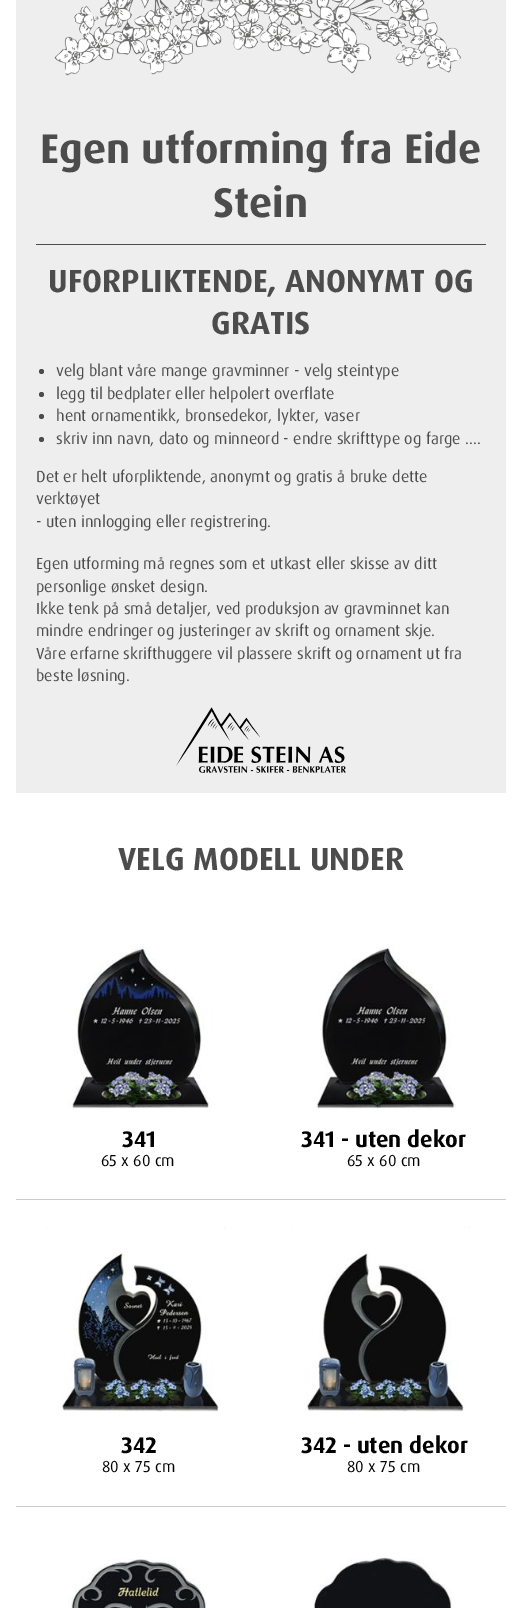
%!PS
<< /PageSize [522 1608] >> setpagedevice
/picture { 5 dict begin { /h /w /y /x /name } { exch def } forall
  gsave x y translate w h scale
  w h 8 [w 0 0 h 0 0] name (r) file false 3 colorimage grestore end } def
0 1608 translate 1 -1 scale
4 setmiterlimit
1 setgray
0 0 522 1608 rectfill
0.933 setgray
16 0 490 793 rectfill
(img1.rgb) 54 0 408 76 picture
/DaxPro-Bold [41.6 0 0 -41.6 0 0] selectfont
0.298 setgray
40 163 moveto (Egen utforming fra Eide) show
213 217 moveto (Stein) show
36 244 450 1 rectfill
/DaxPro-Bold [32 0 0 -32 0 0] selectfont
48 292 moveto (UFORPLIKTENDE, ANONYMT OG) show
211 334 moveto (GRATIS) show
newpath 41.5 371.5 2.5 0 360 arc closepath fill
/DaxPro-Regular [16 0 0 -16 0 0] selectfont
56 376 moveto (velg blant våre mange gravminner - velg steintype) show
newpath 41.5 394.5 2.5 0 360 arc closepath fill
56 399 moveto (legg til bedplater eller helpolert overflate) show
newpath 41.5 416.5 2.5 0 360 arc closepath fill
56 421 moveto (hent ornamentikk, bronsedekor, lykter, vaser) show
newpath 41.5 439.5 2.5 0 360 arc closepath fill
56 444 moveto (skriv inn navn, dato og minneord - endre skrifttype og farge ....) show
36 482 moveto (Det er helt uforpliktende, anonymt og gratis å bruke dette) show
36 504 moveto (verktøyet) show
36 527 moveto (- uten innlogging eller registrering.) show
36 569 moveto (Egen utforming må regnes som et utkast eller skisse av ditt) show
36 592 moveto (personlige ønsket design.) show
36 614 moveto (Ikke tenk på små detaljer, ved produksjon av gravminnet kan) show
36 636 moveto (mindre endringer og justeringer av skrift og ornament skje.) show
36 659 moveto (Våre erfarne skrifthuggere vil plassere skrift og ornament ut fra) show
36 681 moveto (beste løsning.) show
(img2.rgb) 176 707 170 66 picture
/DaxPro-Bold [32 0 0 -32 0 0] selectfont
118 870 moveto (VELG MODELL UNDER) show
0.8 setgray
16 1199 490 1 rectfill
(img3.rgb) 69 946 143 163 picture
/DaxPro-Bold [22.5 0 0 -22.5 0 0] selectfont
0 setgray
122 1147 moveto (341) show
/DaxPro-Regular [16 0 0 -16 0 0] selectfont
101 1166 moveto (65 x 60 cm) show
(img4.rgb) 316 946 140 163 picture
/DaxPro-Bold [22.5 0 0 -22.5 0 0] selectfont
301 1147 moveto (341 - uten dekor) show
/DaxPro-Regular [16 0 0 -16 0 0] selectfont
347 1166 moveto (65 x 60 cm) show
0.8 setgray
16 1506 490 1 rectfill
(img5.rgb) 45 1226 181 186 picture
/DaxPro-Bold [22.5 0 0 -22.5 0 0] selectfont
0 setgray
121 1453 moveto (342) show
/DaxPro-Regular [16 0 0 -16 0 0] selectfont
102 1472 moveto (80 x 75 cm) show
(img6.rgb) 290 1226 181 186 picture
/DaxPro-Bold [22.5 0 0 -22.5 0 0] selectfont
301 1453 moveto (342 - uten dekor) show
/DaxPro-Regular [16 0 0 -16 0 0] selectfont
347 1472 moveto (80 x 75 cm) show
(img7.rgb) 68 1559 139 49 picture
(img8.rgb) 313 1557 141 51 picture
showpage
